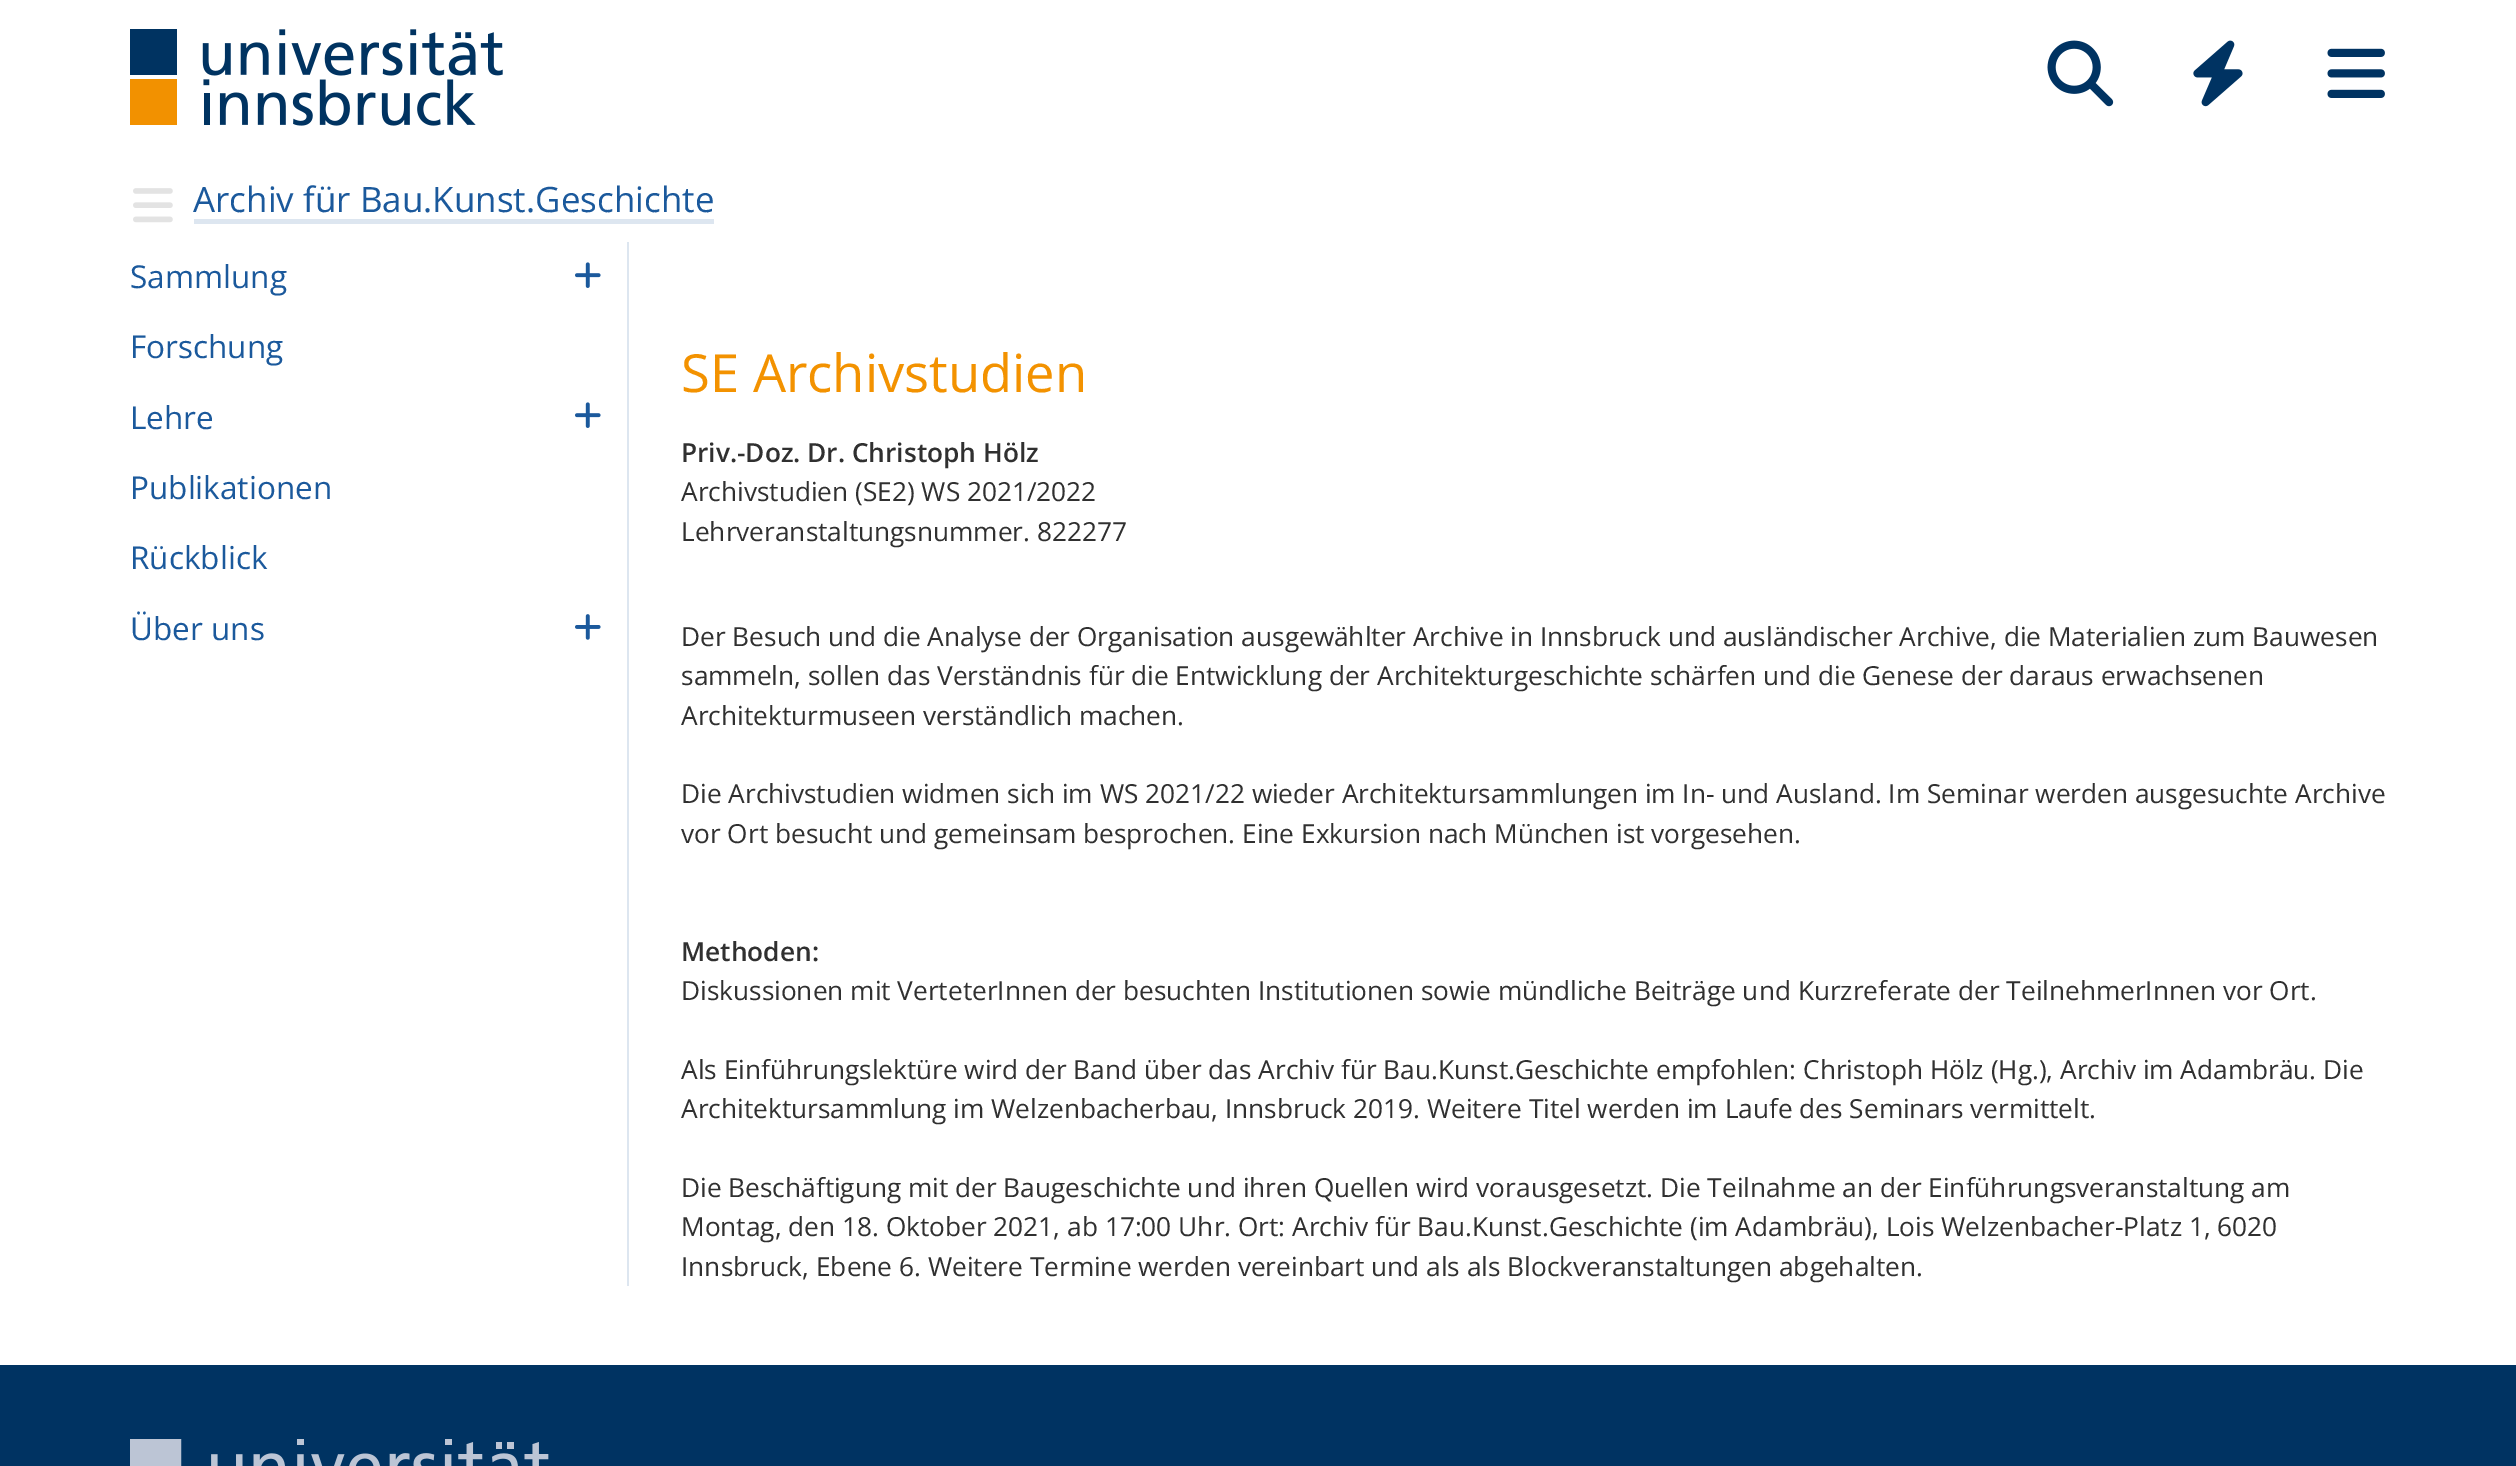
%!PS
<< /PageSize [2516 1466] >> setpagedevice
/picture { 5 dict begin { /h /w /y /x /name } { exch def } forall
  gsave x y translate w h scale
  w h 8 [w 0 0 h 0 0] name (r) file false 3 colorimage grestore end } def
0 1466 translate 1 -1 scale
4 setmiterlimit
1 setgray
0 0 2516 1466 rectfill
(img1.rgb) 130 29 373 97 picture
(img2.rgb) 2047 40 67 67 picture
(img3.rgb) 2193 40 50 67 picture
(img4.rgb) 2327 48 58 50 picture
(img5.rgb) 133 188 40 35 picture
/OpenSans-Regular [35 0 0 -35 0 0] selectfont
0.106 0.349 0.612 setrgbcolor
193 212 moveto (Archiv für Bau.Kunst.Geschichte) show
0.867 0.902 0.941 setrgbcolor
194 219 520 5 rectfill
627 242 2 1044 rectfill
/OpenSans-Regular [31.5 0 0 -31.5 0 0] selectfont
0.106 0.349 0.612 setrgbcolor
130 288 moveto (Sammlung) show
(img6.rgb) 575 262 26 26 picture
130 358 moveto (Forschung) show
130 429 moveto (Lehre) show
(img6.rgb) 575 402 26 26 picture
130 499 moveto (Publikationen) show
130 569 moveto (Rückblick) show
130 640 moveto (Über uns) show
(img7.rgb) 575 614 26 26 picture
/OpenSans-Regular [52.5 0 0 -52.5 0 0] selectfont
0.953 0.573 0 setrgbcolor
681 392 moveto (SE Archivstudien) show
/OpenSans-SemiBold [26.25 0 0 -26.25 0 0] selectfont
0.188 setgray
681 462 moveto (Priv.-Doz. Dr. Christoph Hölz) show
/OpenSans-Regular [26.25 0 0 -26.25 0 0] selectfont
681 501 moveto (Archivstudien \(SE2\) WS 2021/2022) show
681 541 moveto (Lehrveranstaltungsnummer. 822277) show
681 646 moveto (Der Besuch und die Analyse der Organisation ausgewählter Archive in Innsbruck und ausländischer Archive, die Materialien zum Bauwesen) show
681 685 moveto (sammeln, sollen das Verständnis für die Entwicklung der Architekturgeschichte schärfen und die Genese der daraus erwachsenen) show
681 725 moveto (Architekturmuseen verständlich machen.) show
681 803 moveto (Die Archivstudien widmen sich im WS 2021/22 wieder Architektursammlungen im In- und Ausland. Im Seminar werden ausgesuchte Archive) show
681 843 moveto (vor Ort besucht und gemeinsam besprochen. Eine Exkursion nach München ist vorgesehen.) show
/OpenSans-SemiBold [26.25 0 0 -26.25 0 0] selectfont
681 961 moveto (Methoden:) show
/OpenSans-Regular [26.25 0 0 -26.25 0 0] selectfont
681 1000 moveto (Diskussionen mit VerteterInnen der besuchten Institutionen sowie mündliche Beiträge und Kurzreferate der TeilnehmerInnen vor Ort.) show
681 1079 moveto (Als Einführungslektüre wird der Band über das Archiv für Bau.Kunst.Geschichte empfohlen: Christoph Hölz \(Hg.\), Archiv im Adambräu. Die) show
681 1118 moveto (Architektursammlung im Welzenbacherbau, Innsbruck 2019. Weitere Titel werden im Laufe des Seminars vermittelt.) show
681 1197 moveto (Die Beschäftigung mit der Baugeschichte und ihren Quellen wird vorausgesetzt. Die Teilnahme an der Einführungsveranstaltung am) show
681 1236 moveto (Montag, den 18. Oktober 2021, ab 17:00 Uhr. Ort: Archiv für Bau.Kunst.Geschichte \(im Adambräu\), Lois Welzenbacher-Platz 1, 6020) show
681 1276 moveto (Innsbruck, Ebene 6. Weitere Termine werden vereinbart und als als Blockveranstaltungen abgehalten.) show
0 0.2 0.384 setrgbcolor
0 1365 2516 101 rectfill
(img8.rgb) 130 1439 419 27 picture
showpage
